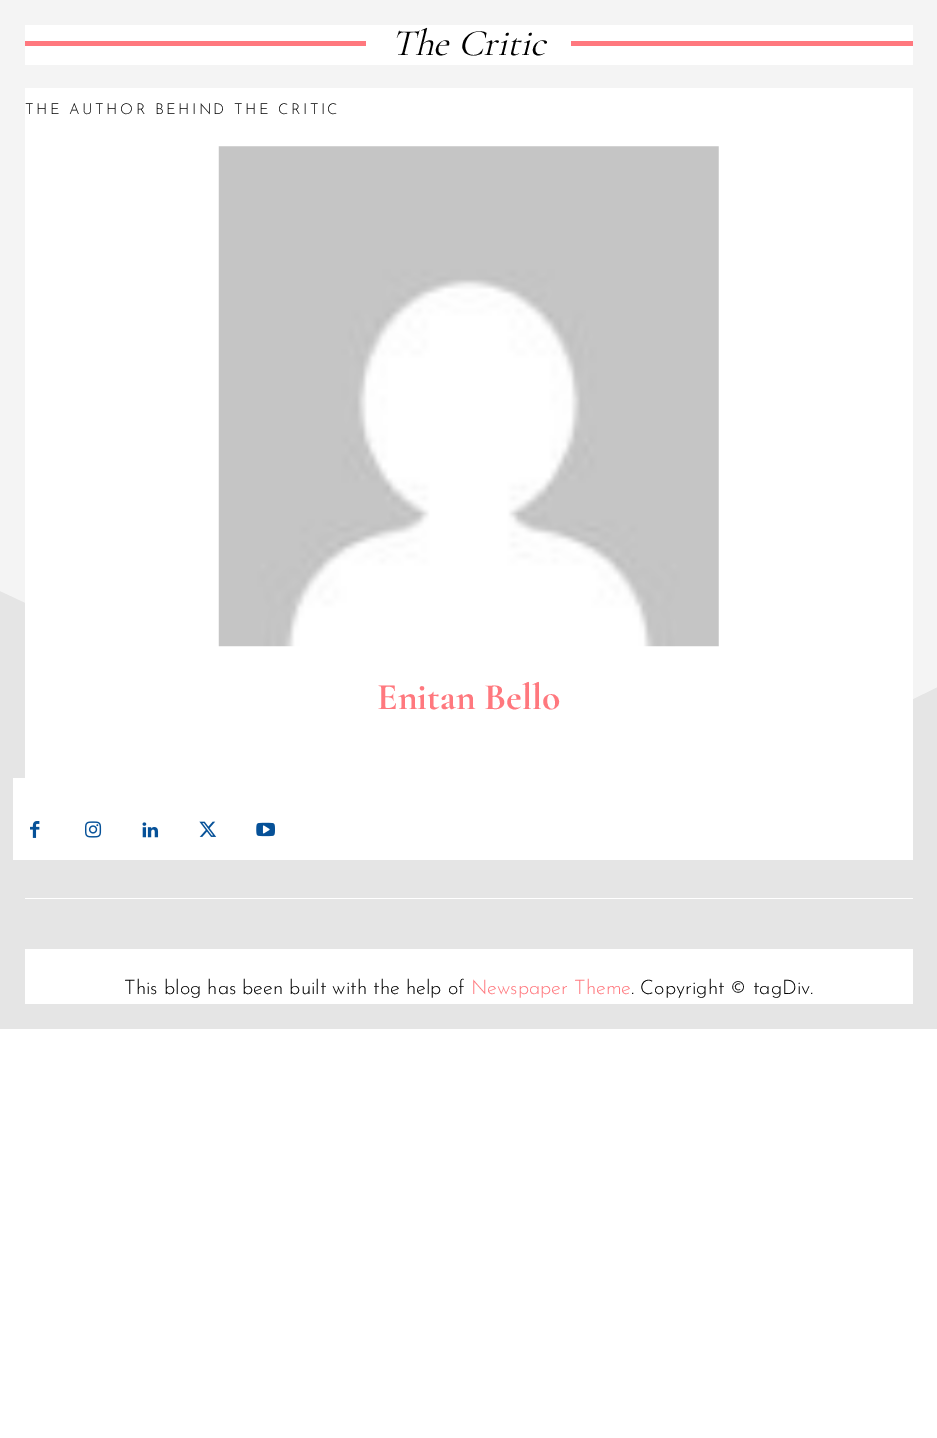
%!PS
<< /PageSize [937 1438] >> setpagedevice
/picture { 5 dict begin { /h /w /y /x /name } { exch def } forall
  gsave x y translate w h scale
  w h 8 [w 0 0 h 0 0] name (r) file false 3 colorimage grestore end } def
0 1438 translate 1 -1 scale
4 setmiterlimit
1 setgray
0 0 937 1438 rectfill
0.957 setgray
0 0 937 700 rectfill
1 setgray
25 25 888 40 rectfill
1 0.471 0.494 setrgbcolor
25 41 341 5 rectfill
/CormorantGaramond-Italic [37.5 0 0 -37.5 0 0] selectfont
0 setgray
391 55 moveto (The Critic) show
1 0.471 0.494 setrgbcolor
571 41 342 5 rectfill
0.898 setgray
newpath -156 974 moveto -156 632 lineto -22 581 lineto 219 694 lineto 394 643 lineto 754 778 lineto 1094 610 lineto 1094 974 lineto closepath fill
1 setgray
25 88 888 690 rectfill
/JosefinSans-Light [15 0 0 -15 0 0] selectfont
0 setgray
25 114 moveto 2.5 0 (THE AUTHOR BEHIND THE CRITIC) ashow
(img1.rgb) 218 146 501 501 picture
/CormorantGaramond-Bold [37.5 0 0 -37.5 0 0] selectfont
1 0.471 0.494 setrgbcolor
377 709 moveto (Enitan Bello) show
1 setgray
13 778 900 82 rectfill
(img2.rgb) 30 821 10 17 picture
(img3.rgb) 85 821 17 17 picture
(img4.rgb) 142 822 17 16 picture
(img5.rgb) 199 821 18 16 picture
(img6.rgb) 256 822 19 15 picture
25 898 888 1 rectfill
0.898 setgray
0 974 937 55 rectfill
1 setgray
25 949 888 55 rectfill
/JosefinSans-Light [20 0 0 -20 0 0] selectfont
0 setgray
124 994 moveto (This blog has been built with the help of) show
1 0.471 0.494 setrgbcolor
471 994 moveto (Newspaper Theme) show
0 setgray
631 994 moveto (. Copyright © tagDiv.) show
showpage
